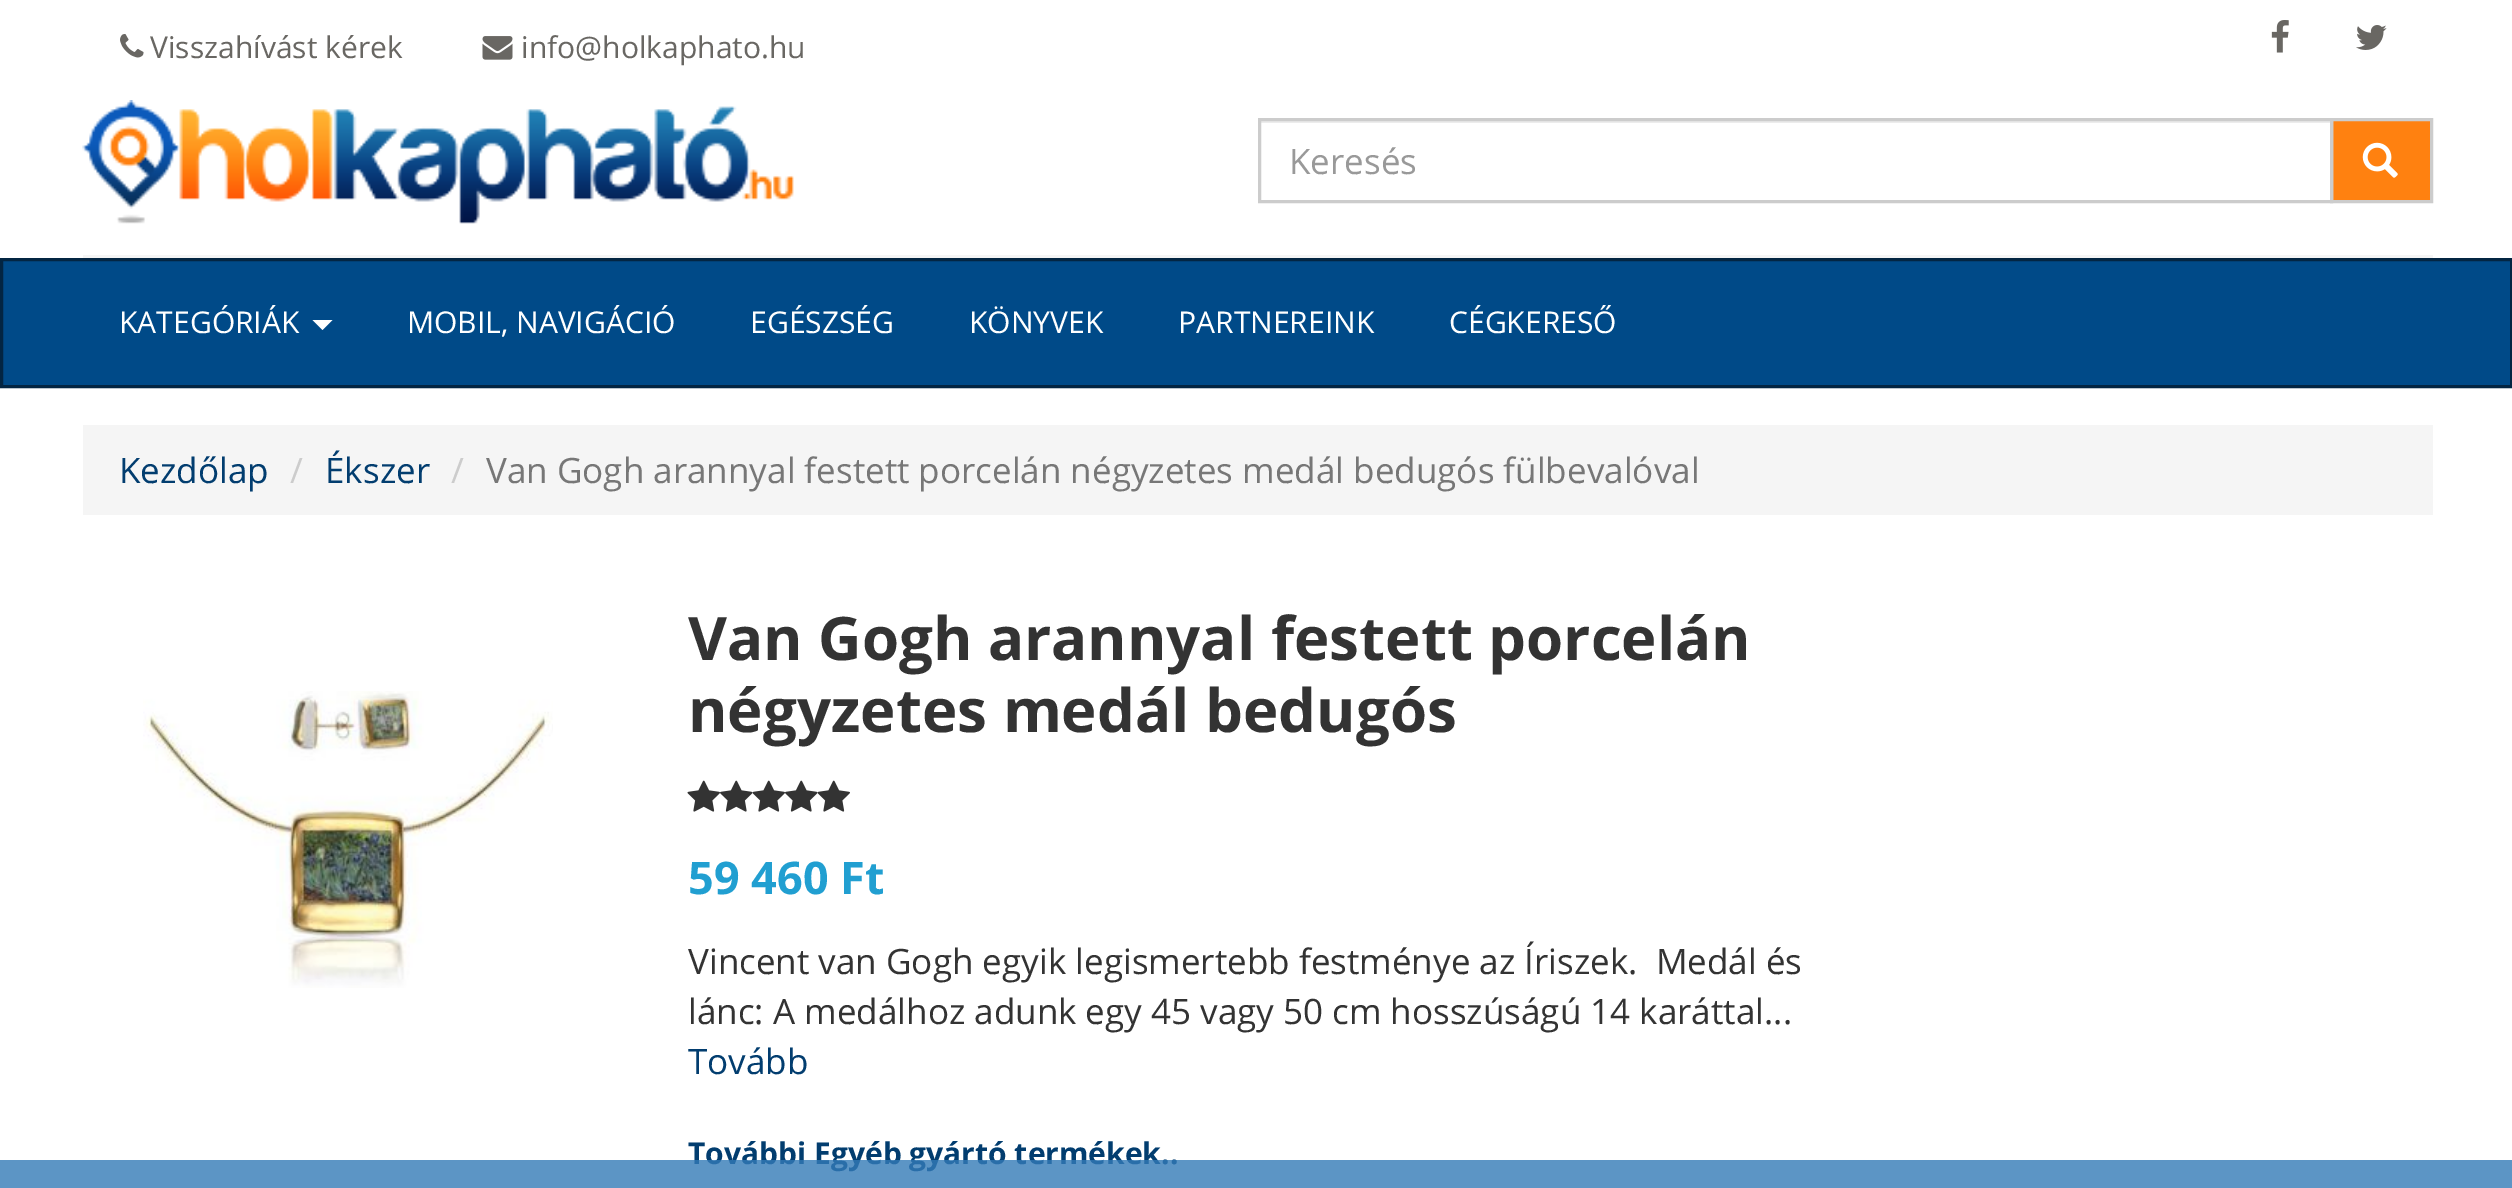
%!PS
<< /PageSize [2512 1188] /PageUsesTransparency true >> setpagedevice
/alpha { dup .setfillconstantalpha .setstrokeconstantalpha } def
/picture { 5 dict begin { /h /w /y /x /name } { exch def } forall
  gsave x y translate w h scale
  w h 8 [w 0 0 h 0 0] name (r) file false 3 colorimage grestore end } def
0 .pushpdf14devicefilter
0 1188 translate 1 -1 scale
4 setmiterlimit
1 setgray
0 0 2512 1188 rectfill
(img1.rgb) 120 34 24 24 picture
/OpenSans-Regular [30 0 0 -30 0 0] selectfont
0.412 0.404 0.388 setrgbcolor
150 58 moveto (Visszahívást kérek) show
(img2.rgb) 482 36 31 24 picture
521 58 moveto (info@holkaphato.hu) show
(img3.rgb) 2271 20 18 33 picture
(img4.rgb) 2356 25 31 25 picture
0.961 setgray
83 255 2350 3 rectfill
(img5.rgb) 82 100 712 124 picture
0.925 setgray
1260 121 1070 2 rectfill
1 0.506 0.063 setrgbcolor
newpath 2331.5 119.5 moveto 2431.5 119.5 lineto 2431.5 201.5 lineto 2331.5 201.5 lineto closepath gsave fill grestore
0.8 setgray
3 setlinewidth
stroke
1259.5 119.5 1072 82 rectstroke
/OpenSans-Regular [35 0 0 -35 0 0] selectfont
0.6 setgray
1289 174 moveto (Keresés) show
(img6.rgb) 2362 142 36 36 picture
0 0.29 0.533 setrgbcolor
newpath 1.5 259.5 moveto 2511.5 259.5 lineto 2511.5 386.5 lineto 1.5 386.5 lineto closepath gsave fill grestore
0.012 0.145 0.259 setrgbcolor
stroke
/OpenSans-Regular [30 0 0 -30 0 0] selectfont
1 setgray
119 333 moveto (KATEGÓRIÁK) show
newpath 312.5 320 moveto 332.5 320 lineto 322.5 330 lineto closepath fill
407 333 moveto (MOBIL, NAVIGÁCIÓ) show
750 333 moveto (EGÉSZSÉG) show
969 333 moveto (KÖNYVEK) show
1178 333 moveto (PARTNEREINK) show
1449 333 moveto (CÉGKERESŐ) show
0.961 setgray
83 425 2350 90 rectfill
/OpenSans-Regular [35 0 0 -35 0 0] selectfont
0.008 0.239 0.435 setrgbcolor
119 483 moveto (Kezdőlap) show
0.8 setgray
290 483 moveto (/) show
0.008 0.239 0.435 setrgbcolor
325 483 moveto (Ékszer) show
0.8 setgray
451 483 moveto (/) show
0.467 setgray
486 483 moveto (Van Gogh arannyal festett porcelán négyzetes medál bedugós fülbevalóval) show
(img7.rgb) 143 691 410 297 picture
/OpenSans-Bold [60 0 0 -60 0 0] selectfont
0.2 setgray
688 660 moveto (Van Gogh arannyal festett porcelán) show
688 732 moveto (négyzetes medál bedugós) show
(img8.rgb) 687 780 33 32 picture
(img9.rgb) 720 780 33 32 picture
(img10.rgb) 752 780 33 32 picture
(img9.rgb) 785 780 33 32 picture
(img10.rgb) 817 780 33 32 picture
/OpenSans-Bold [45 0 0 -45 0 0] selectfont
0.129 0.624 0.82 setrgbcolor
688 894 moveto (59 460 Ft) show
/OpenSans-Regular [35 0 0 -35 0 0] selectfont
0.2 setgray
688 974 moveto (Vincent van Gogh egyik legismertebb festménye az Íriszek.  Medál és) show
688 1024 moveto (lánc: A medálhoz adunk egy 45 vagy 50 cm hosszúságú 14 karáttal...) show
0.008 0.239 0.435 setrgbcolor
688 1074 moveto (Tovább) show
/OpenSans-Bold [30 0 0 -30 0 0] selectfont
688 1164 moveto (További Egyéb gyártó termékek..) show
0.8 alpha
0.2 0.478 0.718 setrgbcolor
0 1160 2512 28 rectfill
.poppdf14devicefilter showpage
